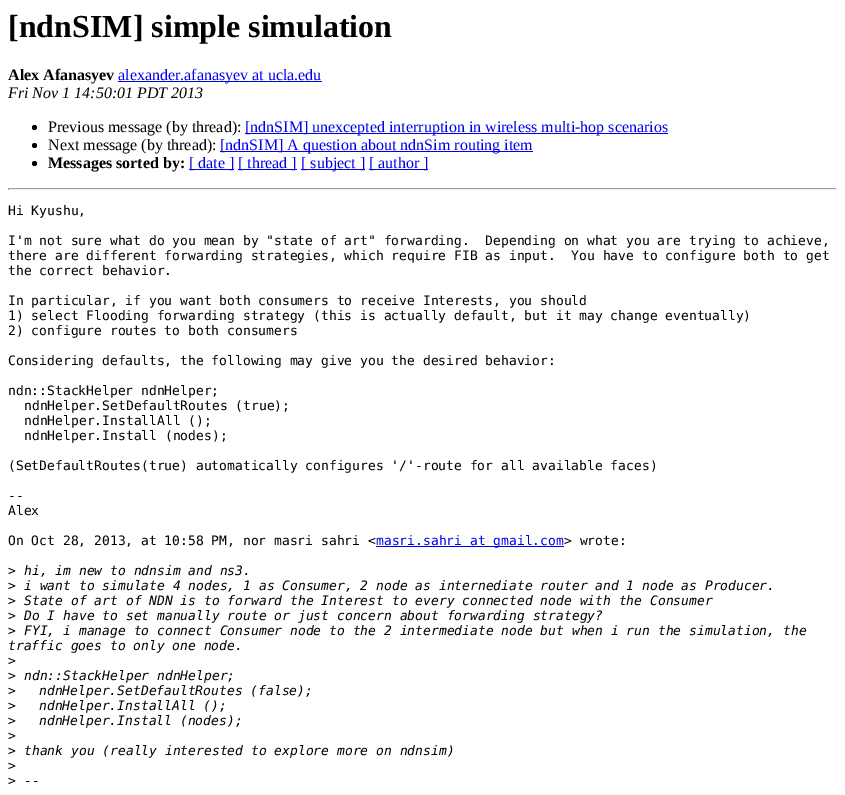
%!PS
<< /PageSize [845 795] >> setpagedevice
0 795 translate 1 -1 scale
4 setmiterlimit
1 setgray
0 0 845 795 rectfill
/LiberationSerif-Bold [32 0 0 -32 0 0] selectfont
0 setgray
8 37 moveto ([ndnSIM] simple simulation) show
/LiberationSerif-Bold [16 0 0 -16 0 0] selectfont
8 80 moveto (Alex Afanasyev) show
0 0 0.933 setrgbcolor
118 81 204 1 rectfill
/LiberationSerif-Regular [16 0 0 -16 0 0] selectfont
118 80 moveto (alexander.afanasyev at ucla.edu) show
/LiberationSerif-Italic [16 0 0 -16 0 0] selectfont
0 setgray
8 98 moveto (Fri Nov 1 14:50:01 PDT 2013) show
newpath 34.5 127.5 2.5 0 360 arc closepath fill
/LiberationSerif-Regular [16 0 0 -16 0 0] selectfont
48 132 moveto (Previous message \(by thread\):) show
0 0 0.933 setrgbcolor
245 133 423 1 rectfill
245 132 moveto ([ndnSIM] unexcepted interruption in wireless multi-hop scenarios) show
0 setgray
newpath 34.5 145.5 2.5 0 360 arc closepath fill
48 150 moveto (Next message \(by thread\):) show
0 0 0.933 setrgbcolor
220 151 313 1 rectfill
220 150 moveto ([ndnSIM] A question about ndnSim routing item) show
0 setgray
newpath 34.5 163.5 2.5 0 360 arc closepath fill
/LiberationSerif-Bold [16 0 0 -16 0 0] selectfont
48 168 moveto (Messages sorted by:) show
0 0 0.933 setrgbcolor
189 169 45 1 rectfill
/LiberationSerif-Regular [16 0 0 -16 0 0] selectfont
189 168 moveto ([ date ]) show
238 169 59 1 rectfill
238 168 moveto ([ thread ]) show
301 169 64 1 rectfill
301 168 moveto ([ subject ]) show
369 169 59 1 rectfill
369 168 moveto ([ author ]) show
0.624 setgray
8 188 829 1 rectfill
0.933 setgray
836 188 1 2 rectfill
8 189 829 1 rectfill
0.624 setgray
8 188 1 2 rectfill
/DejaVuSansMono-Regular [13 0 0 -13 0 0] selectfont
0 setgray
8 215 moveto (Hi Kyushu,) show
8 245 moveto (I'm not sure what do you mean by "state of art" forwarding.  Depending on what you are trying to achieve,) show
8 260 moveto (there are different forwarding strategies, which require FIB as input.  You have to configure both to get) show
8 275 moveto (the correct behavior.) show
8 305 moveto (In particular, if you want both consumers to receive Interests, you should) show
8 320 moveto (1\) select Flooding forwarding strategy \(this is actually default, but it may change eventually\)) show
8 335 moveto (2\) configure routes to both consumers) show
8 365 moveto (Considering defaults, the following may give you the desired behavior:) show
8 395 moveto (ndn::StackHelper ndnHelper;) show
24 410 moveto (ndnHelper.SetDefaultRoutes \(true\);) show
24 425 moveto (ndnHelper.InstallAll \(\);) show
24 440 moveto (ndnHelper.Install \(nodes\);) show
8 470 moveto (\(SetDefaultRoutes\(true\) automatically configures '/'-route for all available faces\)) show
8 500 moveto (--) show
8 515 moveto (Alex) show
8 545 moveto (On Oct 28, 2013, at 10:58 PM, nor masri sahri <) show
0 0 0.933 setrgbcolor
376 546 188 1 rectfill
376 545 moveto (masri.sahri at gmail.com) show
0 setgray
564 545 moveto (> wrote:) show
8 575 moveto (>) show
/DejaVuSansMono-Italic [13 0 0 -13 0 0] selectfont
24 575 moveto (hi, im new to ndnsim and ns3.) show
/DejaVuSansMono-Regular [13 0 0 -13 0 0] selectfont
8 590 moveto (>) show
/DejaVuSansMono-Italic [13 0 0 -13 0 0] selectfont
24 590 moveto (i want to simulate 4 nodes, 1 as Consumer, 2 node as internediate router and 1 node as Producer.) show
/DejaVuSansMono-Regular [13 0 0 -13 0 0] selectfont
8 605 moveto (>) show
/DejaVuSansMono-Italic [13 0 0 -13 0 0] selectfont
24 605 moveto (State of art of NDN is to forward the Interest to every connected node with the Consumer) show
/DejaVuSansMono-Regular [13 0 0 -13 0 0] selectfont
8 620 moveto (>) show
/DejaVuSansMono-Italic [13 0 0 -13 0 0] selectfont
24 620 moveto (Do I have to set manually route or just concern about forwarding strategy?) show
/DejaVuSansMono-Regular [13 0 0 -13 0 0] selectfont
8 635 moveto (>) show
/DejaVuSansMono-Italic [13 0 0 -13 0 0] selectfont
24 635 moveto (FYI, i manage to connect Consumer node to the 2 intermediate node but when i run the simulation, the) show
8 650 moveto (traffic goes to only one node.) show
/DejaVuSansMono-Regular [13 0 0 -13 0 0] selectfont
8 665 moveto (>) show
8 680 moveto (>) show
/DejaVuSansMono-Italic [13 0 0 -13 0 0] selectfont
24 680 moveto (ndn::StackHelper ndnHelper;) show
/DejaVuSansMono-Regular [13 0 0 -13 0 0] selectfont
8 695 moveto (>) show
/DejaVuSansMono-Italic [13 0 0 -13 0 0] selectfont
39 695 moveto (ndnHelper.SetDefaultRoutes \(false\);) show
/DejaVuSansMono-Regular [13 0 0 -13 0 0] selectfont
8 710 moveto (>) show
/DejaVuSansMono-Italic [13 0 0 -13 0 0] selectfont
39 710 moveto (ndnHelper.InstallAll \(\);) show
/DejaVuSansMono-Regular [13 0 0 -13 0 0] selectfont
8 725 moveto (>) show
/DejaVuSansMono-Italic [13 0 0 -13 0 0] selectfont
39 725 moveto (ndnHelper.Install \(nodes\);) show
/DejaVuSansMono-Regular [13 0 0 -13 0 0] selectfont
8 740 moveto (>) show
8 755 moveto (>) show
/DejaVuSansMono-Italic [13 0 0 -13 0 0] selectfont
24 755 moveto (thank you \(really interested to explore more on ndnsim\)) show
/DejaVuSansMono-Regular [13 0 0 -13 0 0] selectfont
8 770 moveto (>) show
8 785 moveto (>) show
/DejaVuSansMono-Italic [13 0 0 -13 0 0] selectfont
24 785 moveto (--) show
showpage
